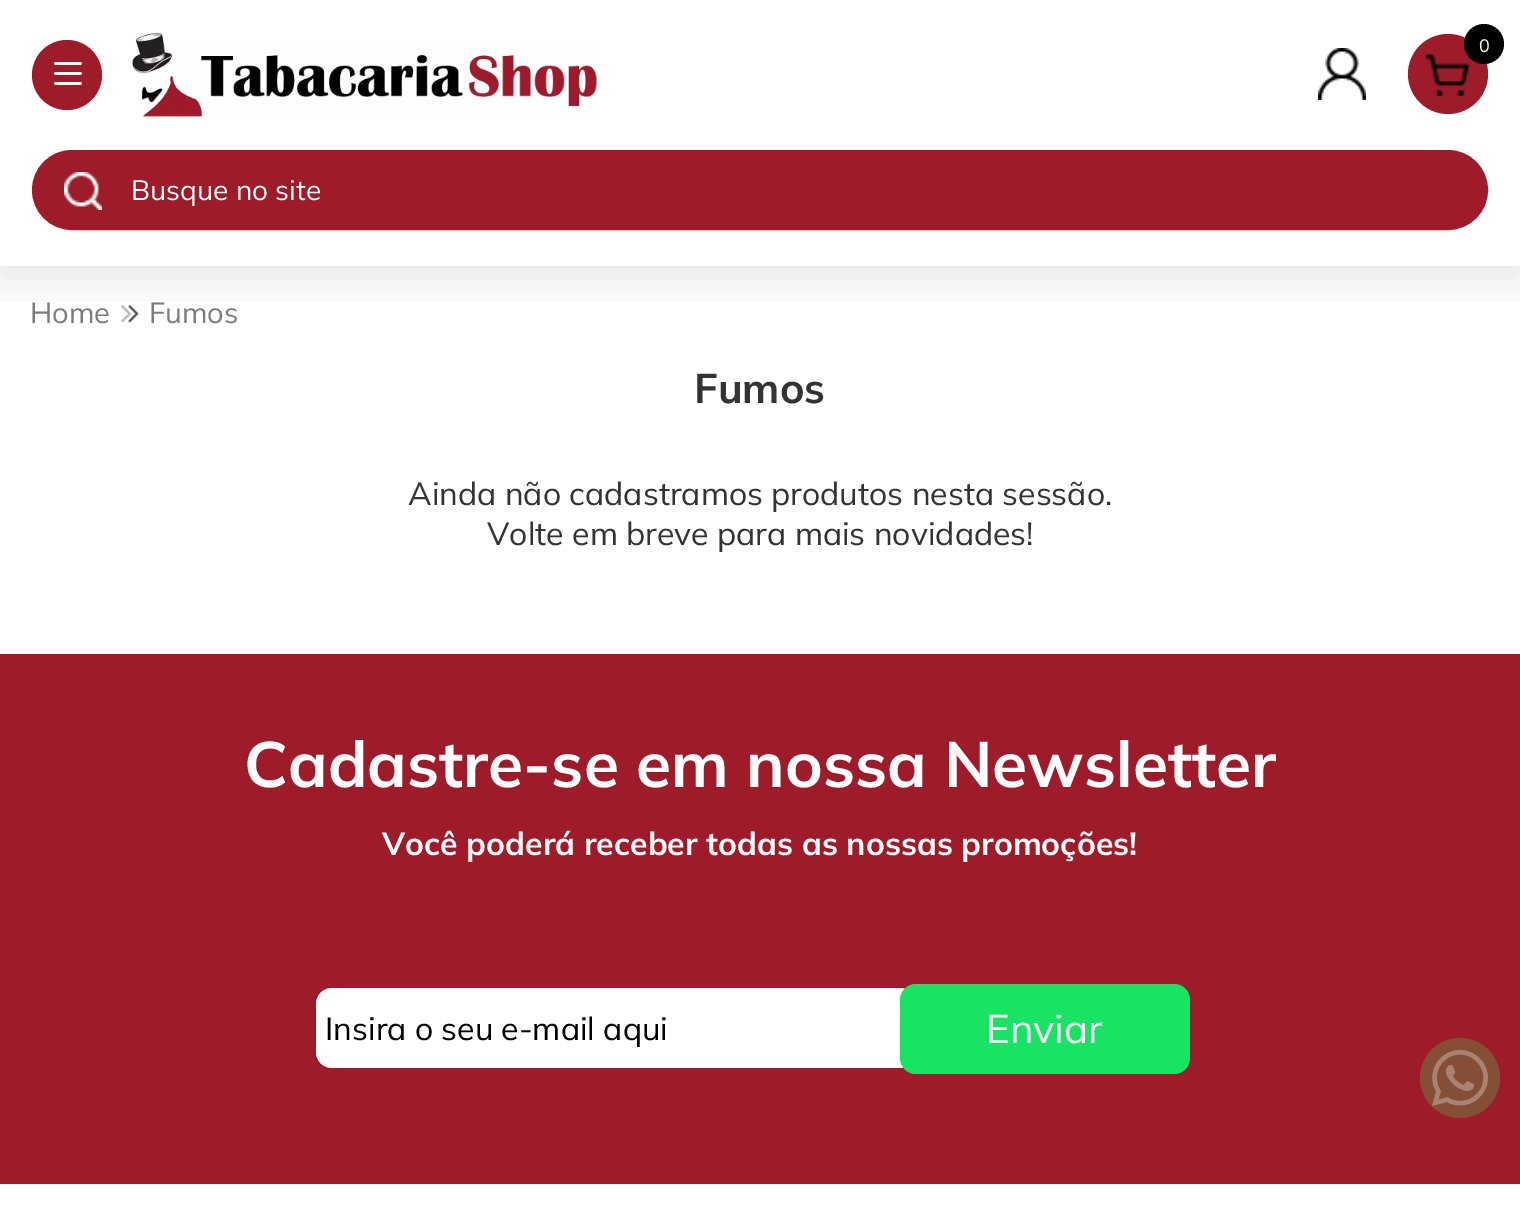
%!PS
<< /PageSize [1520 1217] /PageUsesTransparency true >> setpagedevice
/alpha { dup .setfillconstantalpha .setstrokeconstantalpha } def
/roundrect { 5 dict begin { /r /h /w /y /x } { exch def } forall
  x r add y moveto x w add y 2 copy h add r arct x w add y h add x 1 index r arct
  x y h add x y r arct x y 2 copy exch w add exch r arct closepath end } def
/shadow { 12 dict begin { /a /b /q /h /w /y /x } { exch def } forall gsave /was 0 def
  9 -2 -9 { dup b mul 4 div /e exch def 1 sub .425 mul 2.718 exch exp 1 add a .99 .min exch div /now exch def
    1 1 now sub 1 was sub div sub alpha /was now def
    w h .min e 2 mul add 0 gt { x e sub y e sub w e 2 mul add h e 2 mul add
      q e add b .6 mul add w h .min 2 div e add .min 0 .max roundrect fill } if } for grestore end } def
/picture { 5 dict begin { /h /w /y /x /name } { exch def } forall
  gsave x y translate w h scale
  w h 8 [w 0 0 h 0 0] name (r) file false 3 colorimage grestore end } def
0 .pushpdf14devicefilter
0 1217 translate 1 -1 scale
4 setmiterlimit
1 setgray
0 0 1520 1217 rectfill
gsave
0 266 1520 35 rectclip
0.224 0.243 0.263 setrgbcolor
0 8 1520 266 0 24 0.15 shadow
grestore
0.62 0.106 0.161 setrgbcolor
newpath 67 75 35 0 360 arc closepath fill
(img1.rgb) 54 62 28 23 picture
(img2.rgb) 132 32 467 86 picture
newpath 1448 74 40 0 360 arc closepath fill
(img3.rgb) 1426 54 44 42 picture
0 setgray
newpath 1484 44 20 0 360 arc closepath fill
/Mulish-Regular [18 0 0 -18 0 0] selectfont
1 setgray
1479 52 moveto (0) show
(img4.rgb) 1318 48 48 52 picture
0.62 0.106 0.161 setrgbcolor
33 151 1454 78 39 roundrect gsave fill grestore
2 setlinewidth
stroke
(img5.rgb) 64 172 38 38 picture
/Mulish-Regular [28 0 0 -28 0 0] selectfont
1 setgray
131 200 moveto (Busque no site) show
/Mulish-Regular [29 0 0 -29 0 0] selectfont
0.486 setgray
30 323 moveto (Home) show
(img6.rgb) 121 305 18 18 picture
149 323 moveto (Fumos) show
/Mulish-Bold [41.5 0 0 -41.5 0 0] selectfont
0.2 setgray
694 403 moveto (Fumos) show
/Mulish-Regular [32 0 0 -32 0 0] selectfont
408 505 moveto (Ainda não cadastramos produtos nesta sessão.) show
487 545 moveto (Volte em breve para mais novidades!) show
0.62 0.106 0.161 setrgbcolor
0 654 1520 530 rectfill
/Mulish-Bold [64 0 0 -64 0 0] selectfont
1 setgray
244 787 moveto (Cadastre-se em nossa Newsletter) show
/Mulish-Bold [32 0 0 -32 0 0] selectfont
382 855 moveto (Você poderá receber todas as nossas promoções!) show
316 988 600 80 16 roundrect fill
/Mulish-Regular [32 0 0 -32 0 0] selectfont
0 setgray
325 1040 moveto (Insira o seu e-mail aqui) show
0.098 0.89 0.388 setrgbcolor
900 984 290 90 16 roundrect fill
/Mulish-Regular [40 0 0 -40 0 0] selectfont
1 setgray
986 1043 moveto (Enviar) show
0.522 0.306 0.212 setrgbcolor
newpath 1460 1078 40 0 360 arc closepath fill
(img7.rgb) 1432 1050 56 56 picture
.poppdf14devicefilter showpage
